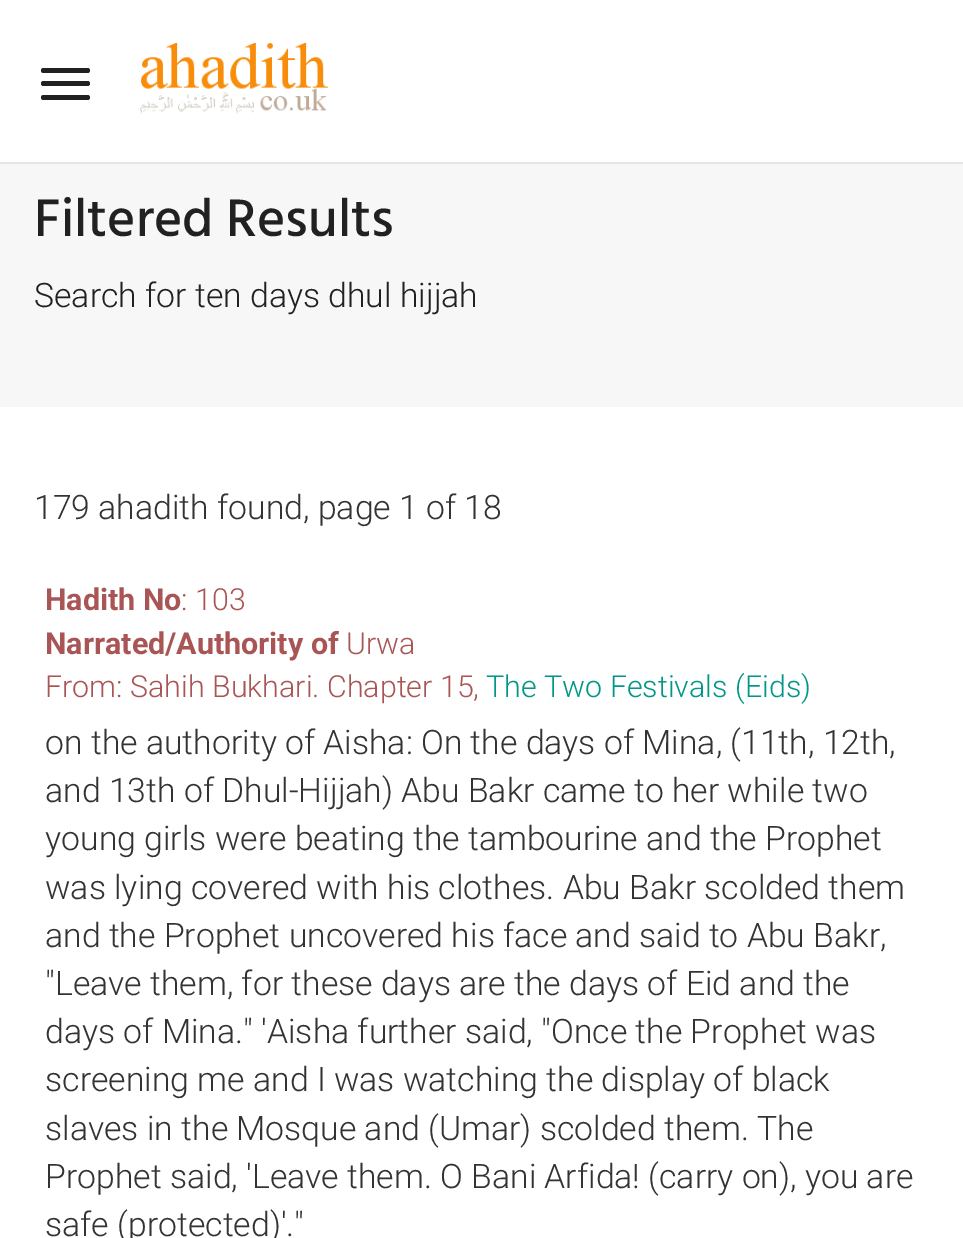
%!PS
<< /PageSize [963 1238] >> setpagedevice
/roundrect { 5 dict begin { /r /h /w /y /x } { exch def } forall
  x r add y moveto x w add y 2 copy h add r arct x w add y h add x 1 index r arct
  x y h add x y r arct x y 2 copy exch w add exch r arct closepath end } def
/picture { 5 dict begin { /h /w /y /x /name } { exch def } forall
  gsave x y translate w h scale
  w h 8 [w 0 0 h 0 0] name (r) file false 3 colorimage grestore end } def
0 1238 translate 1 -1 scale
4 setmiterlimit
1 setgray
0 0 963 1238 rectfill
0.902 setgray
0 162 963 2 rectfill
0.129 setgray
41 68 49 5 2.5 roundrect fill
41 81 49 5 2.5 roundrect fill
41 95 49 5 2.5 roundrect fill
(img1.rgb) 140 43 188 71 picture
0.969 setgray
0 164 963 243 rectfill
/HindSiliguri-Medium [54 0 0 -54 0 0] selectfont
0.129 setgray
34 236 moveto (Filtered Results) show
/Roboto-Light [33.75 0 0 -33.75 0 0] selectfont
34 307 moveto (Search for ten days dhul hijjah) show
0.2 setgray
34 519 moveto (179 ahadith found, page 1 of 18) show
/Roboto-Bold [30.4 0 0 -30.4 0 0] selectfont
0.667 0.333 0.333 setrgbcolor
45 610 moveto (Hadith No) show
/Roboto-Light [30.4 0 0 -30.4 0 0] selectfont
181 610 moveto (: 103) show
/Roboto-Bold [30.4 0 0 -30.4 0 0] selectfont
45 654 moveto (Narrated/Authority of) show
/Roboto-Light [30.4 0 0 -30.4 0 0] selectfont
346 654 moveto (Urwa) show
45 697 moveto (From: Sahih Bukhari. Chapter 15,) show
0 0.588 0.533 setrgbcolor
486 697 moveto (The Two Festivals \(Eids\)) show
/Roboto-Light [33.75 0 0 -33.75 0 0] selectfont
0.2 setgray
45 754 moveto (on the authority of Aisha: On the days of Mina, \(11th, 12th,) show
45 802 moveto (and 13th of Dhul-Hijjah\) Abu Bakr came to her while two) show
45 850 moveto (young girls were beating the tambourine and the Prophet) show
45 899 moveto (was lying covered with his clothes. Abu Bakr scolded them) show
45 947 moveto (and the Prophet uncovered his face and said to Abu Bakr,) show
45 995 moveto ("Leave them, for these days are the days of Eid and the) show
45 1043 moveto (days of Mina." 'Aisha further said, "Once the Prophet was) show
45 1091 moveto (screening me and I was watching the display of black) show
45 1140 moveto (slaves in the Mosque and \(Umar\) scolded them. The) show
45 1188 moveto (Prophet said, 'Leave them. O Bani Arfida! \(carry on\), you are) show
45 1236 moveto (safe \(protected\)'.") show
showpage
